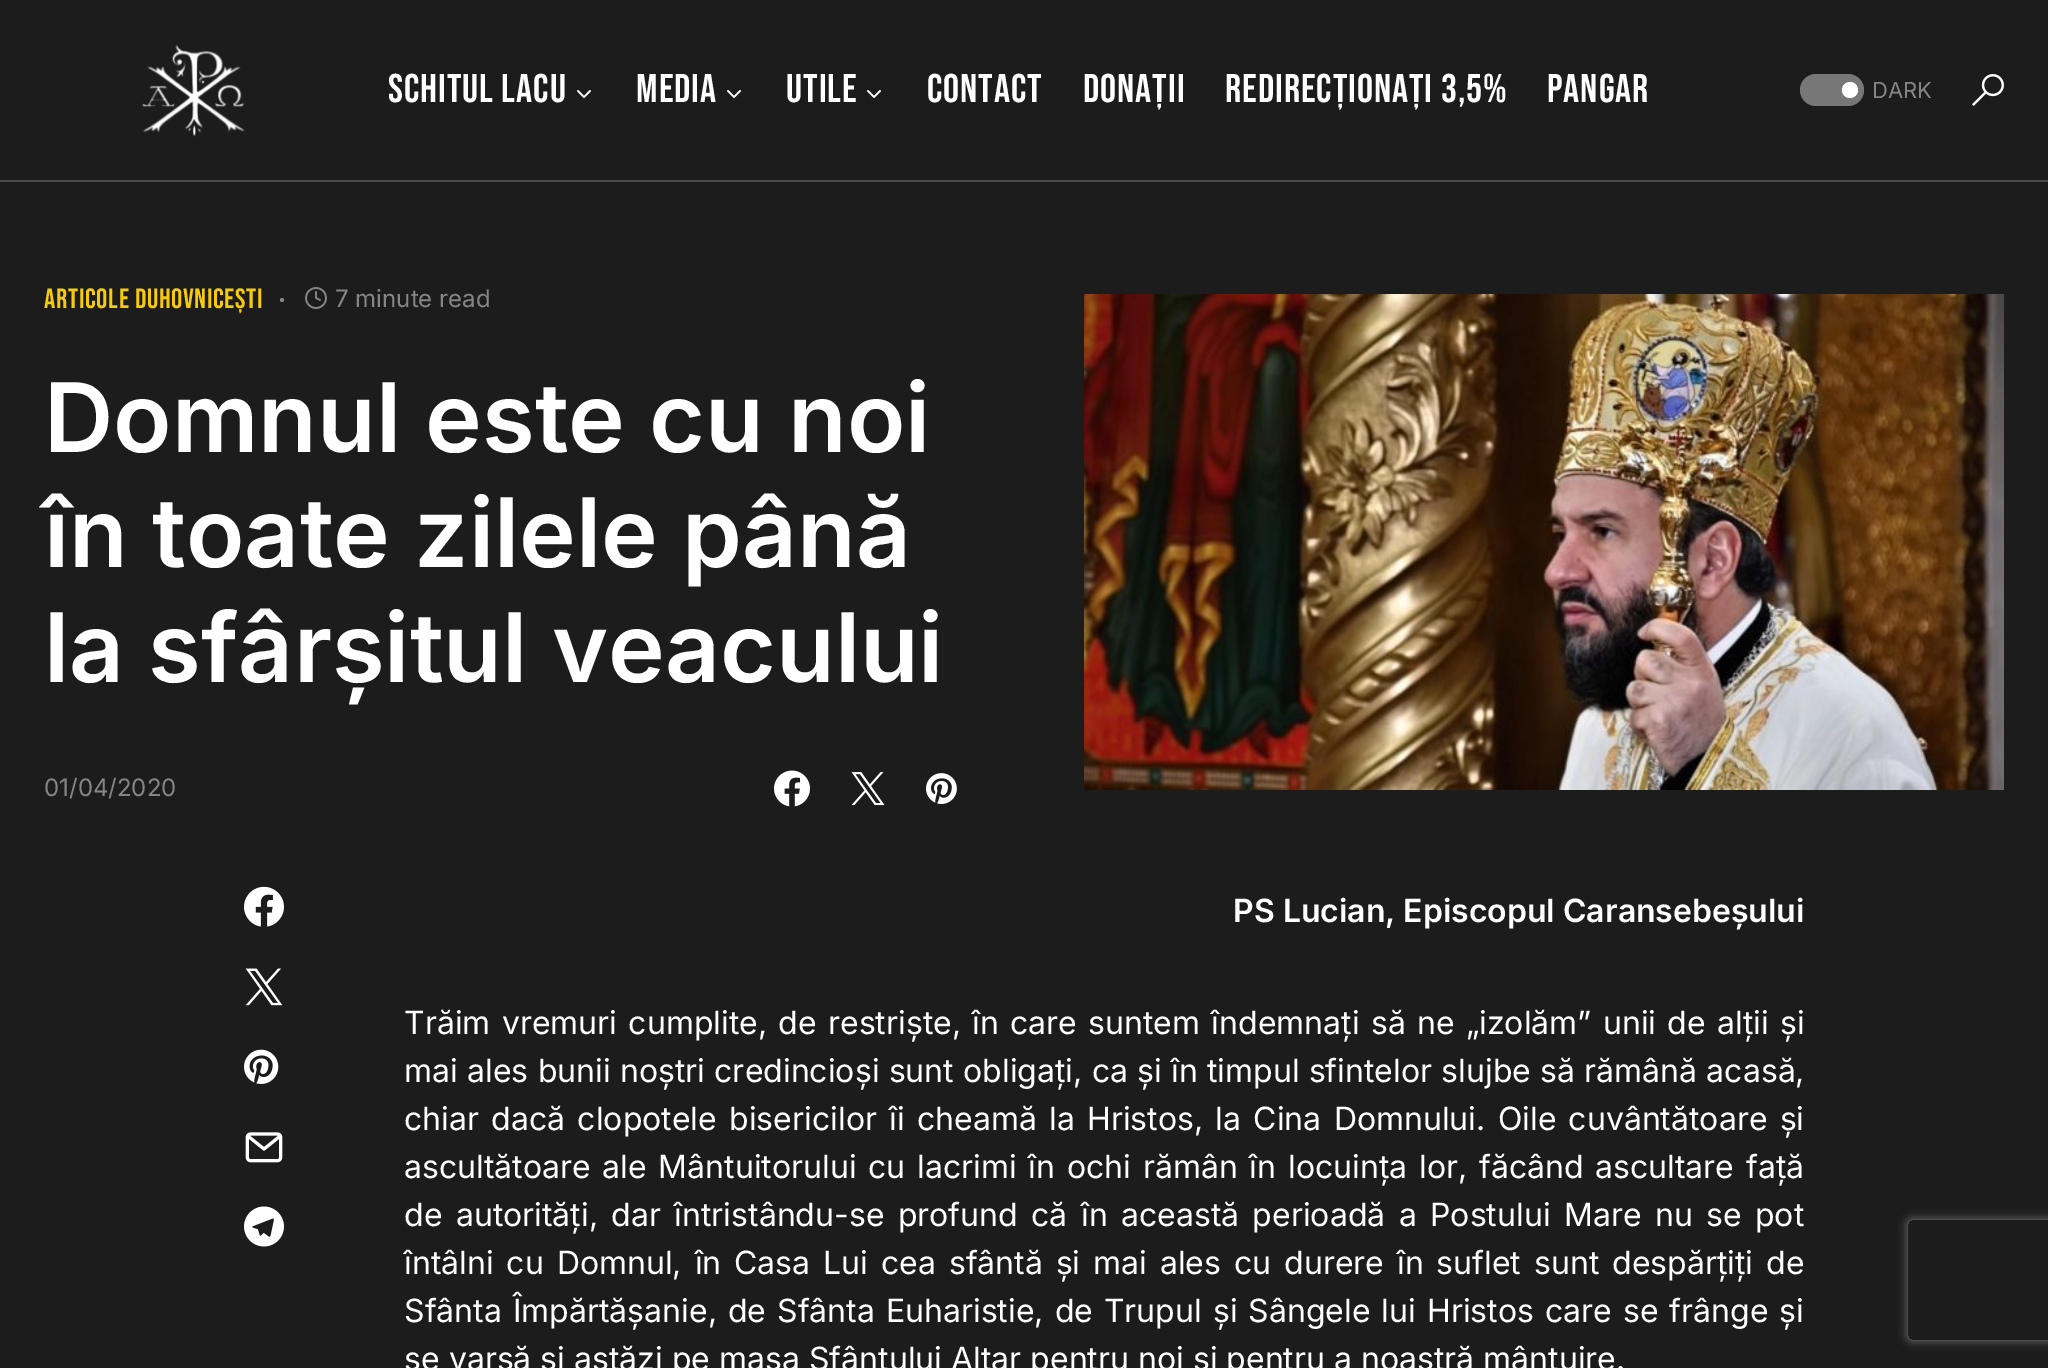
%!PS
<< /PageSize [2048 1368] /PageUsesTransparency true >> setpagedevice
/alpha { dup .setfillconstantalpha .setstrokeconstantalpha } def
/roundrect { 5 dict begin { /r /h /w /y /x } { exch def } forall
  x r add y moveto x w add y 2 copy h add r arct x w add y h add x 1 index r arct
  x y h add x y r arct x y 2 copy exch w add exch r arct closepath end } def
/shadow { 12 dict begin { /a /b /q /h /w /y /x } { exch def } forall gsave /was 0 def
  9 -2 -9 { dup b mul 4 div /e exch def 1 sub .425 mul 2.718 exch exp 1 add a .99 .min exch div /now exch def
    1 1 now sub 1 was sub div sub alpha /was now def
    w h .min e 2 mul add 0 gt { x e sub y e sub w e 2 mul add h e 2 mul add
      q e add b .6 mul add w h .min 2 div e add .min 0 .max roundrect fill } if } for grestore end } def
/picture { 5 dict begin { /h /w /y /x /name } { exch def } forall
  gsave x y translate w h scale
  w h 8 [w 0 0 h 0 0] name (r) file false 3 colorimage grestore end } def
0 .pushpdf14devicefilter
0 1368 translate 1 -1 scale
4 setmiterlimit
0.11 setgray
0 0 2048 1368 rectfill
0.286 0.286 0.294 setrgbcolor
0 180 2048 2 rectfill
(img1.rgb) 142 44 103 93 picture
/BebasNeue-Regular [40 0 0 -40 0 0] selectfont
1 setgray
388 102 moveto 1 0 (Schitul Lacu) ashow
(img2.rgb) 577 90 14 8 picture
636 102 moveto 1 0 (Media) ashow
(img2.rgb) 727 90 14 8 picture
786 102 moveto 1 0 (Utile) ashow
(img2.rgb) 867 90 14 8 picture
927 102 moveto 1 0 (Contact) ashow
1083 102 moveto 1 0 (Donații) ashow
1225 102 moveto 1 0 (Redirecționați 3,5%) ashow
1547 102 moveto 1 0 (Pangar) ashow
0.467 0.467 0.471 setrgbcolor
1800 74 64 32 16 roundrect fill
1 setgray
newpath 1850 90 8 0 360 arc closepath fill
/Inter-Regular [22 0 0 -22 0 0] selectfont
0.522 setgray
1872 98 moveto (DARK) show
(img3.rgb) 1972 74 32 32 picture
/BebasNeue-Regular [28 0 0 -28 0 0] selectfont
0.965 0.796 0.051 setrgbcolor
44 308 moveto 0.7 0 (ARTICOLE DUHOVNICEȘTI) ashow
0.522 setgray
newpath 282 300 2 0 360 arc closepath fill
(img4.rgb) 305 287 22 22 picture
/Inter-Regular [24 0 0 -24 0 0] selectfont
335 307 moveto (7 minute read) show
/Inter-SemiBold [96 0 0 -96 0 0] selectfont
1 setgray
44 452 moveto (Domnul este cu noi) show
44 567 moveto (în toate zilele până) show
44 682 moveto (la sfârșitul veacului) show
/Inter-Regular [24 0 0 -24 0 0] selectfont
0.522 setgray
44 796 moveto (01/04/2020) show
(img5.rgb) 774 770 36 37 picture
(img6.rgb) 851 772 34 34 picture
(img7.rgb) 926 773 31 31 picture
(img8.rgb) 1084 294 920 496 picture
(img9.rgb) 244 886 40 41 picture
(img10.rgb) 245 968 38 38 picture
(img11.rgb) 244 1049 35 35 picture
(img12.rgb) 245 1132 38 31 picture
(img13.rgb) 244 1206 40 41 picture
/Inter-SemiBold [32 0 0 -32 0 0] selectfont
1 setgray
1233 922 moveto (PS Lucian, Episcopul Caransebeșului) show
/Inter-Regular [32 0 0 -32 0 0] selectfont
404 1034 moveto 2.25 0 32 (Trăim vremuri cumplite, de restriște, în care suntem îndemnați să ne „izolăm” unii de alții și) widthshow
404 1082 moveto 0.25 0 32 (mai ales bunii noștri credincioși sunt obligați, ca și în timpul sfintelor slujbe să rămână acasă,) widthshow
404 1130 moveto 3.25 0 32 (chiar dacă clopotele bisericilor îi cheamă la Hristos, la Cina Domnului. Oile cuvântătoare și) widthshow
404 1178 moveto 2.75 0 32 (ascultătoare ale Mântuitorului cu lacrimi în ochi rămân în locuința lor, făcând ascultare față) widthshow
404 1226 moveto 4.4 0 32 (de autorități, dar întristându-se profund că în această perioadă a Postului Mare nu se pot) widthshow
404 1274 moveto 3.9 0 32 (întâlni cu Domnul, în Casa Lui cea sfântă și mai ales cu durere în suflet sunt despărțiți de) widthshow
404 1322 moveto 2 0 32 (Sfânta Împărtășanie, de Sfânta Euharistie, de Trupul și Sângele lui Hristos care se frânge și) widthshow
404 1370 moveto (se varsă și astăzi pe masa Sfântului Altar pentru noi și pentru a noastră mântuire.) show
gsave
newpath 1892 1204 moveto 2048 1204 lineto 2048 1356 lineto 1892 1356 lineto closepath 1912 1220 moveto 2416 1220 lineto 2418 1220 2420 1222 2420 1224 curveto 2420 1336 lineto 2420 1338 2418 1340 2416 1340 curveto 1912 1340 lineto 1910 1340 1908 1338 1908 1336 curveto 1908 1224 lineto 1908 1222 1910 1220 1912 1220 curveto closepath eoclip newpath
0.502 setgray
1908 1220 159 120 4 5 1 shadow
grestore
.poppdf14devicefilter showpage
